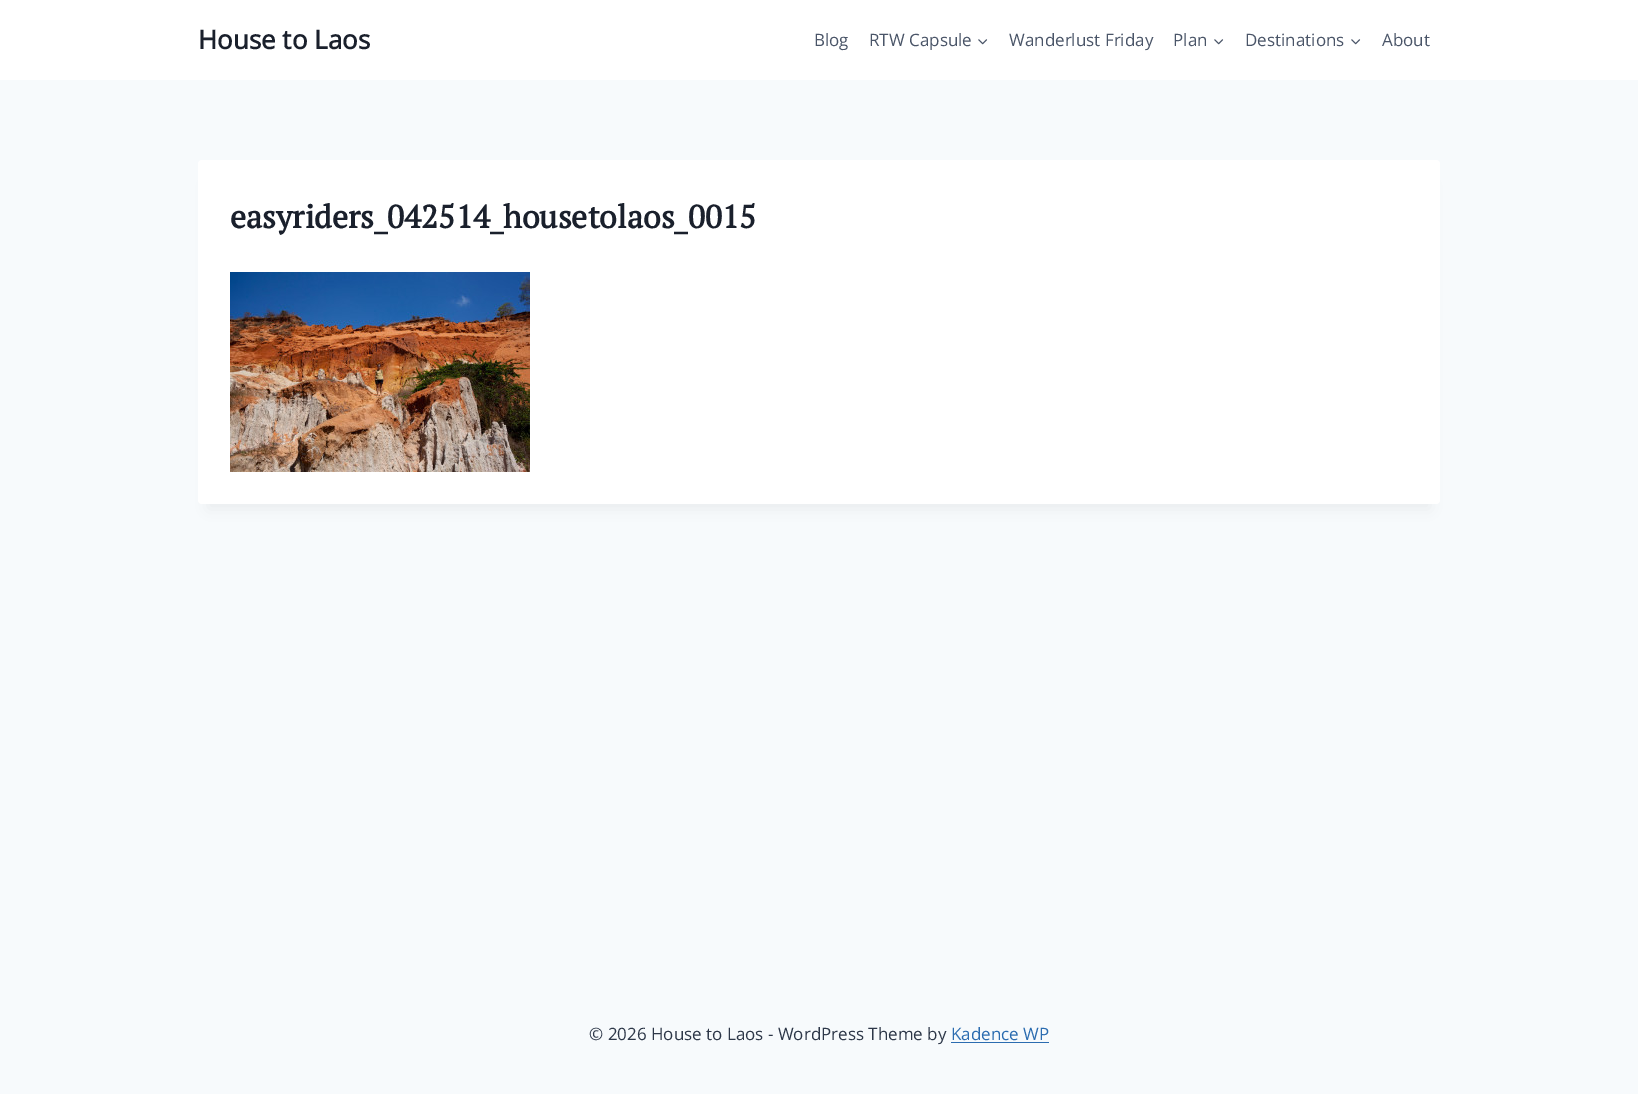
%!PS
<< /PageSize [1638 1094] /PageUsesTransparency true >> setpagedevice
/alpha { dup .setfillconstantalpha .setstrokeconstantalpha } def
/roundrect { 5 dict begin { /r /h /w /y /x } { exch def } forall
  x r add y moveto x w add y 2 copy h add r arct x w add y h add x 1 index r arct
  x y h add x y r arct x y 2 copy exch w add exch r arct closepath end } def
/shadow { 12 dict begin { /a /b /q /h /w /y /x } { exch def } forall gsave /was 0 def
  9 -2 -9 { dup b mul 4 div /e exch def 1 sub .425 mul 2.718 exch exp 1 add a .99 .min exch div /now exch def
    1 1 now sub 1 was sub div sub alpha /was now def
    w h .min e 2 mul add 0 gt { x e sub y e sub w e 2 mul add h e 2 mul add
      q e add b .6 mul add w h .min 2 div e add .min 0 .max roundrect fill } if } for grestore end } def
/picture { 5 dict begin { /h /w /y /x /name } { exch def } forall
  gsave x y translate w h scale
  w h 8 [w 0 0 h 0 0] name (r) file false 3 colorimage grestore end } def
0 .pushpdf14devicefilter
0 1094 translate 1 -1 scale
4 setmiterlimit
0.969 0.98 0.988 setrgbcolor
0 0 1638 1094 rectfill
1 setgray
0 0 1638 80 rectfill
/OpenSans-Bold [26 0 0 -26 0 0] selectfont
0.102 0.125 0.173 setrgbcolor
198 49 moveto (House to Laos) show
/OpenSans-Regular [17 0 0 -17 0 0] selectfont
0.29 0.333 0.408 setrgbcolor
814 46 moveto (Blog) show
869 46 moveto (RTW Capsule) show
(img1.rgb) 978 39 10 6 picture
1009 46 moveto (Wanderlust Friday) show
1173 46 moveto (Plan) show
(img1.rgb) 1214 39 10 6 picture
1245 46 moveto (Destinations) show
(img1.rgb) 1351 39 10 6 picture
1382 46 moveto (About) show
0 setgray
208 185 1222 324 0 7.5 0.05 shadow
1 setgray
198 160 1242 344 4 roundrect fill
/PTSerif-Bold [32 0 0 -32 0 0] selectfont
0.102 0.125 0.173 setrgbcolor
230 228 moveto (easyriders_042514_housetolaos_0015) show
(img2.rgb) 230 272 300 200 picture
/OpenSans-Regular [17 0 0 -17 0 0] selectfont
0.176 0.216 0.282 setrgbcolor
589 1040 moveto (© 2026 House to Laos - WordPress Theme by) show
0.169 0.424 0.69 setrgbcolor
951 1040 moveto (Kadence WP) show
951 1042 98 1 rectfill
.poppdf14devicefilter showpage
